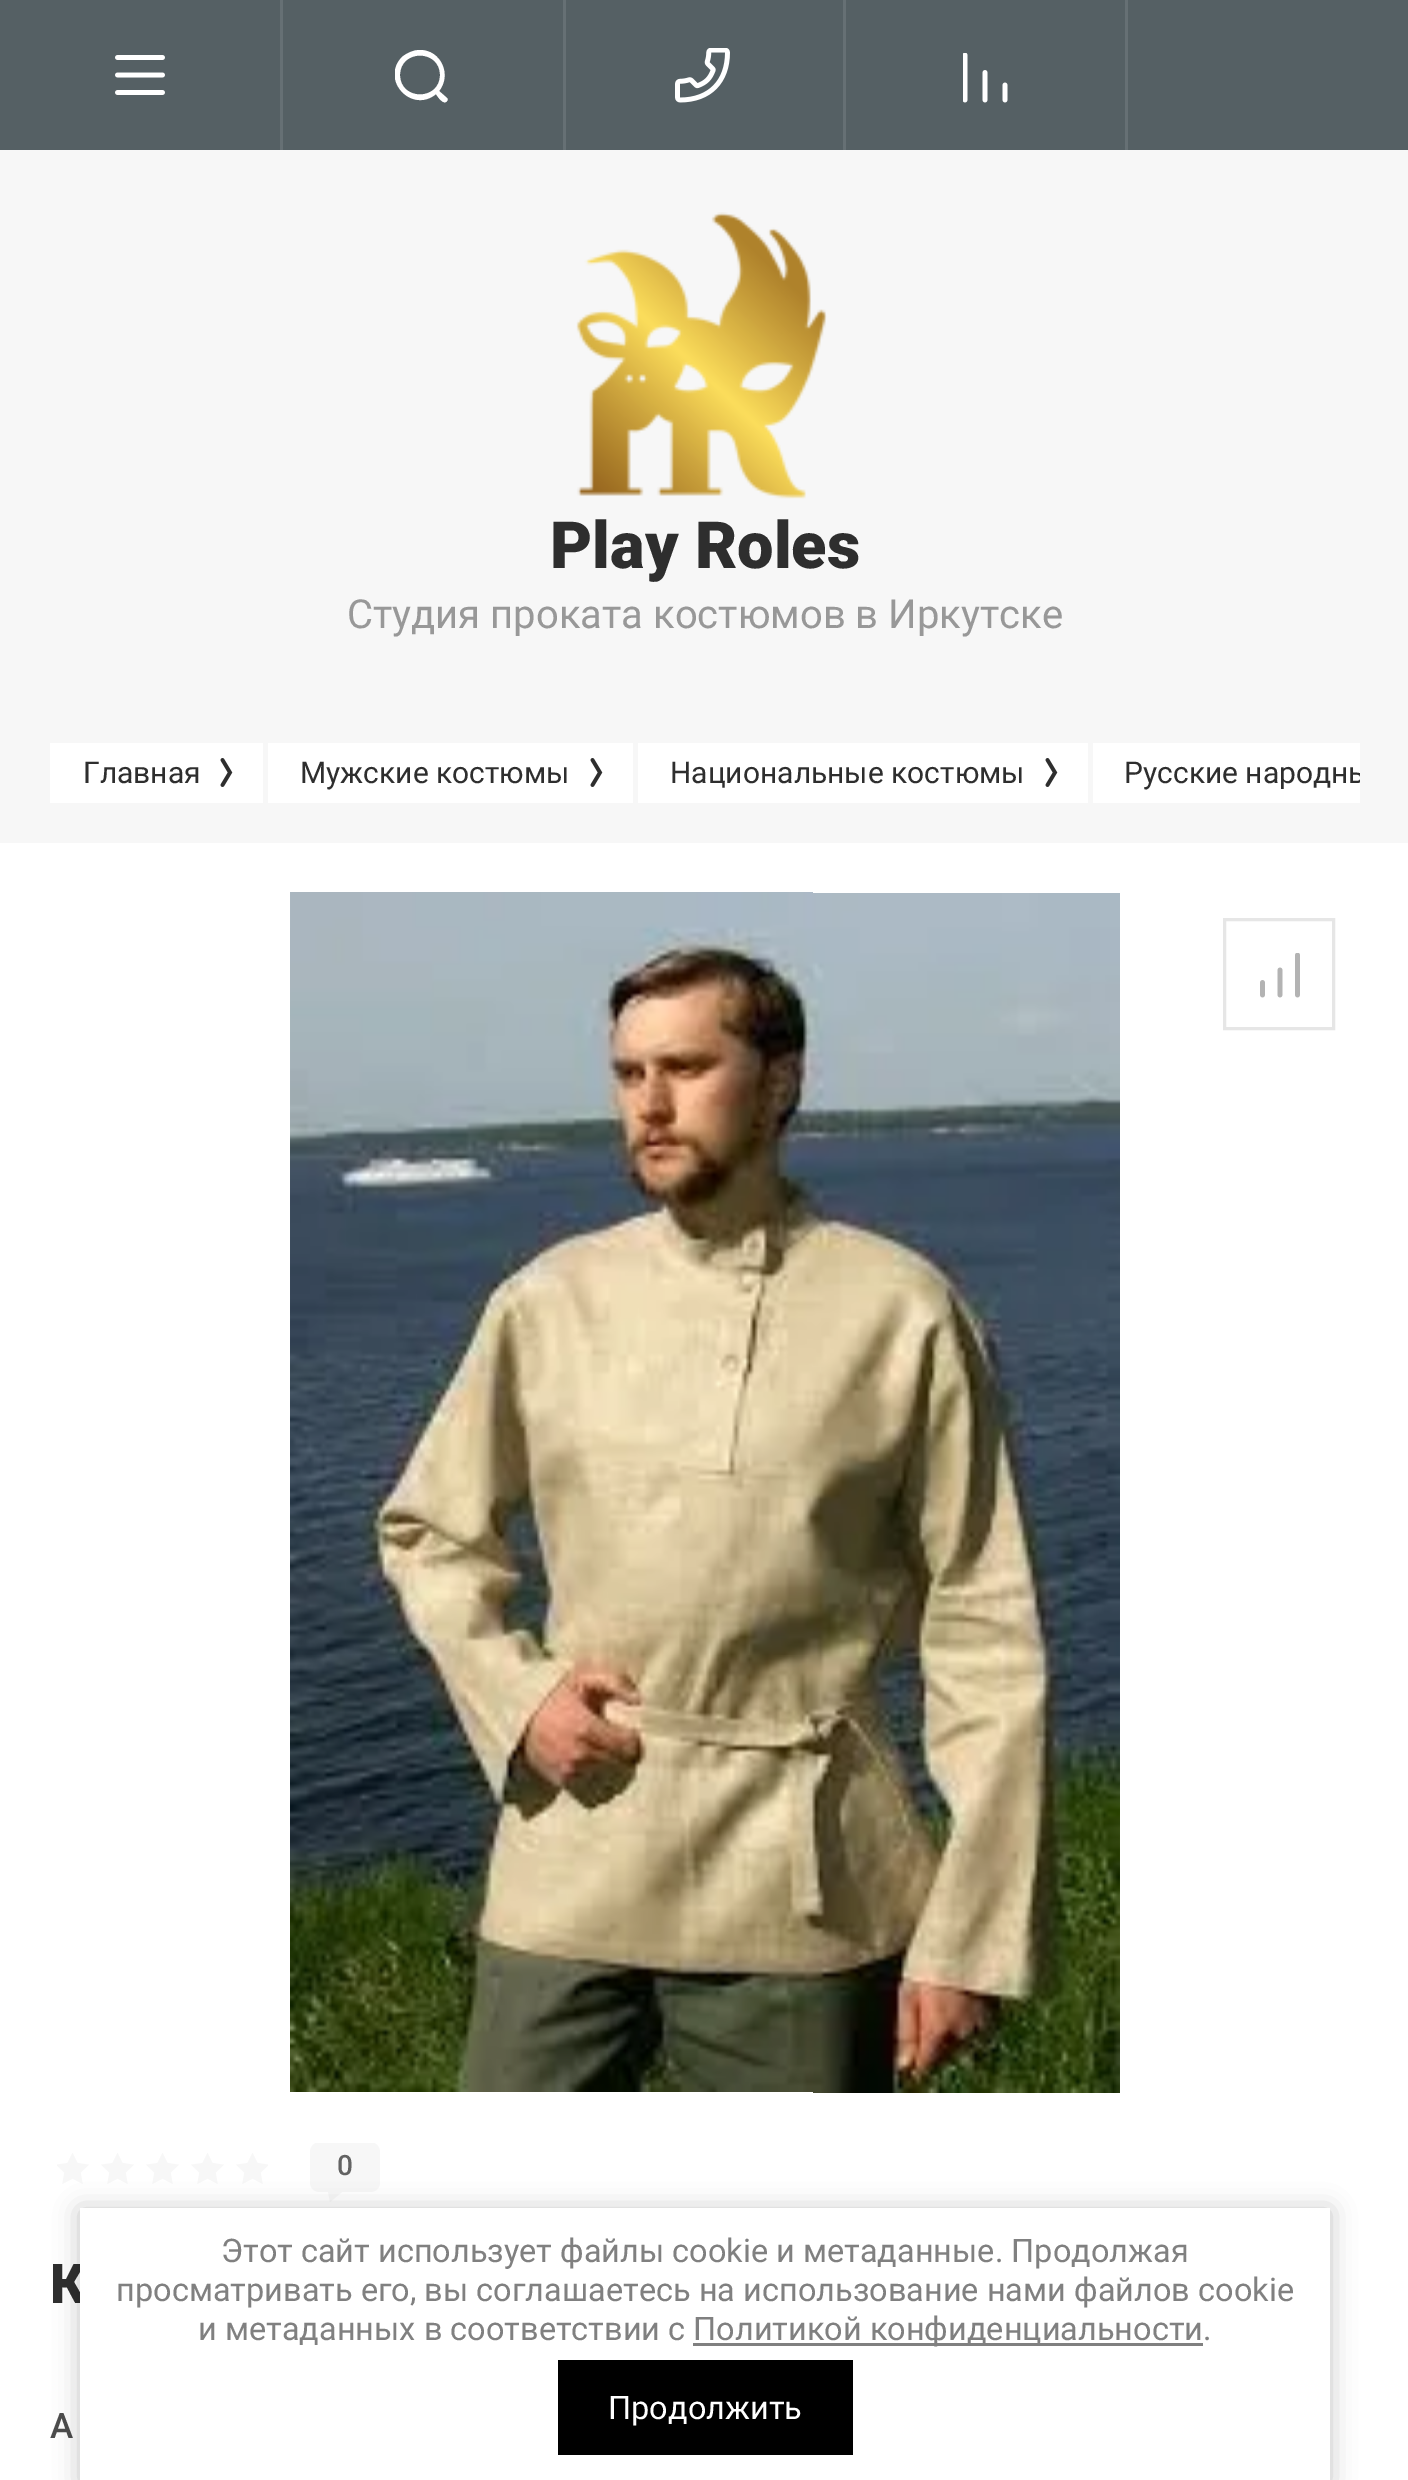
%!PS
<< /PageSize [1408 2480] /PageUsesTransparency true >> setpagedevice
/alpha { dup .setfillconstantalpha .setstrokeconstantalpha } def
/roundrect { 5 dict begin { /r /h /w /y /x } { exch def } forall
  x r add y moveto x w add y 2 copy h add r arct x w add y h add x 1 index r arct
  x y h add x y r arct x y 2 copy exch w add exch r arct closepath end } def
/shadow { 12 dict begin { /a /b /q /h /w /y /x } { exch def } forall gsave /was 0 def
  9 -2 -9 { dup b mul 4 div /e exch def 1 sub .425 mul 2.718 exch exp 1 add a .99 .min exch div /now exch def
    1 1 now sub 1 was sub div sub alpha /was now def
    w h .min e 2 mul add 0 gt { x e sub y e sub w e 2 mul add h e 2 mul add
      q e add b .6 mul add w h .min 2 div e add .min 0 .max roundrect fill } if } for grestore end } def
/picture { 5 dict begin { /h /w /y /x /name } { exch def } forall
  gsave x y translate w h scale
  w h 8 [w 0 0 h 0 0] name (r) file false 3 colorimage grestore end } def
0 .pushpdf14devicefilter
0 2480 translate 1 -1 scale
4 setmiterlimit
0.969 setgray
0 0 1408 2480 rectfill
0.333 0.376 0.392 setrgbcolor
0 0 1408 150 rectfill
0.4 0.439 0.455 setrgbcolor
280 0 3 150 rectfill
(img1.rgb) 115 55 50 40 picture
gsave
395 50 53 53 rectclip
1 setgray
newpath 420 50 moveto 413 50 407 53 402 57 curveto 380 80 412 114 436 94 curveto 437 96 444 106 447 101 curveto 448 100 448 99 447 98 curveto 439 91 lineto 452 75 441 50 420 50 curveto closepath 400 75 moveto 400 49 440 49 440 75 curveto 440 101 400 101 400 75 curveto closepath fill
grestore
563 0 3 150 rectfill
843 0 3 150 rectfill
(img2.rgb) 675 48 55 55 picture
1125 0 3 150 rectfill
(img3.rgb) 963 53 45 50 picture
(img4.rgb) 576 212 251 287 picture
/Roboto-Black [65 0 0 -65 0 0] selectfont
0.18 setgray
550 568 moveto (Play Roles) show
/Roboto-Regular [40 0 0 -40 0 0] selectfont
0.596 setgray
347 628 moveto (Студия проката костюмов в Иркутске) show
1 setgray
50 743 213 60 rectfill
/Roboto-Regular [30 0 0 -30 0 0] selectfont
0.18 setgray
83 783 moveto (Главная) show
(img5.rgb) 220 758 13 29 picture
1 setgray
268 743 365 60 rectfill
0.18 setgray
300 783 moveto (Мужские костюмы) show
(img5.rgb) 590 758 13 29 picture
1 setgray
638 743 450 60 rectfill
0.18 setgray
670 783 moveto (Национальные костюмы) show
(img5.rgb) 1045 758 13 29 picture
1 setgray
1093 743 267 60 rectfill
gsave
50 743 1310 60 rectclip
0.18 setgray
1124 783 moveto (Русские народны) show
grestore
0 843 1408 1637 rectfill
(img6.rgb) 290 892 830 1201 picture
(img7.rgb) 1260 953 40 45 picture
0.902 setgray
3 setlinewidth
1224.5 919.5 109 109 rectstroke
(img8.rgb) 57 2153 211 31 picture
gsave
310 2143 70 60 rectclip
0.969 setgray
newpath 320 2142 moveto 314 2142 310 2147 310 2152 curveto 310 2182 lineto 310 2188 314 2192 320 2192 curveto 328 2192 lineto 330 2202 lineto 342 2192 lineto 370 2192 lineto 376 2192 380 2188 380 2182 curveto 380 2152 lineto 380 2147 376 2142 370 2142 curveto closepath fill
grestore
/Roboto-Medium [28 0 0 -28 0 0] selectfont
0.388 setgray
337 2175 moveto (0) show
/Roboto-Black [55 0 0 -55 0 0] selectfont
0.18 setgray
50 2303 moveto (К) show
/Roboto-Medium [35 0 0 -35 0 0] selectfont
0.302 setgray
50 2438 moveto (А) show
0 setgray
80 2210 1250 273 0 12.5 0.23 shadow
1 setgray
80 2208 1250 272 rectfill
/Roboto-Regular [32.5 0 0 -32.5 0 0] selectfont
0.502 setgray
221 2262 moveto (Этот сайт использует файлы cookie и метаданные. Продолжая) show
116 2301 moveto (просматривать его, вы соглашаетесь на использование нами файлов cookie) show
198 2340 moveto (и метаданных в соответствии с) show
693 2343 510 3 rectfill
693 2340 moveto (Политикой конфиденциальности.) show
0 setgray
558 2360 295 95 rectfill
1 setgray
608 2419 moveto (Продолжить) show
.poppdf14devicefilter showpage
